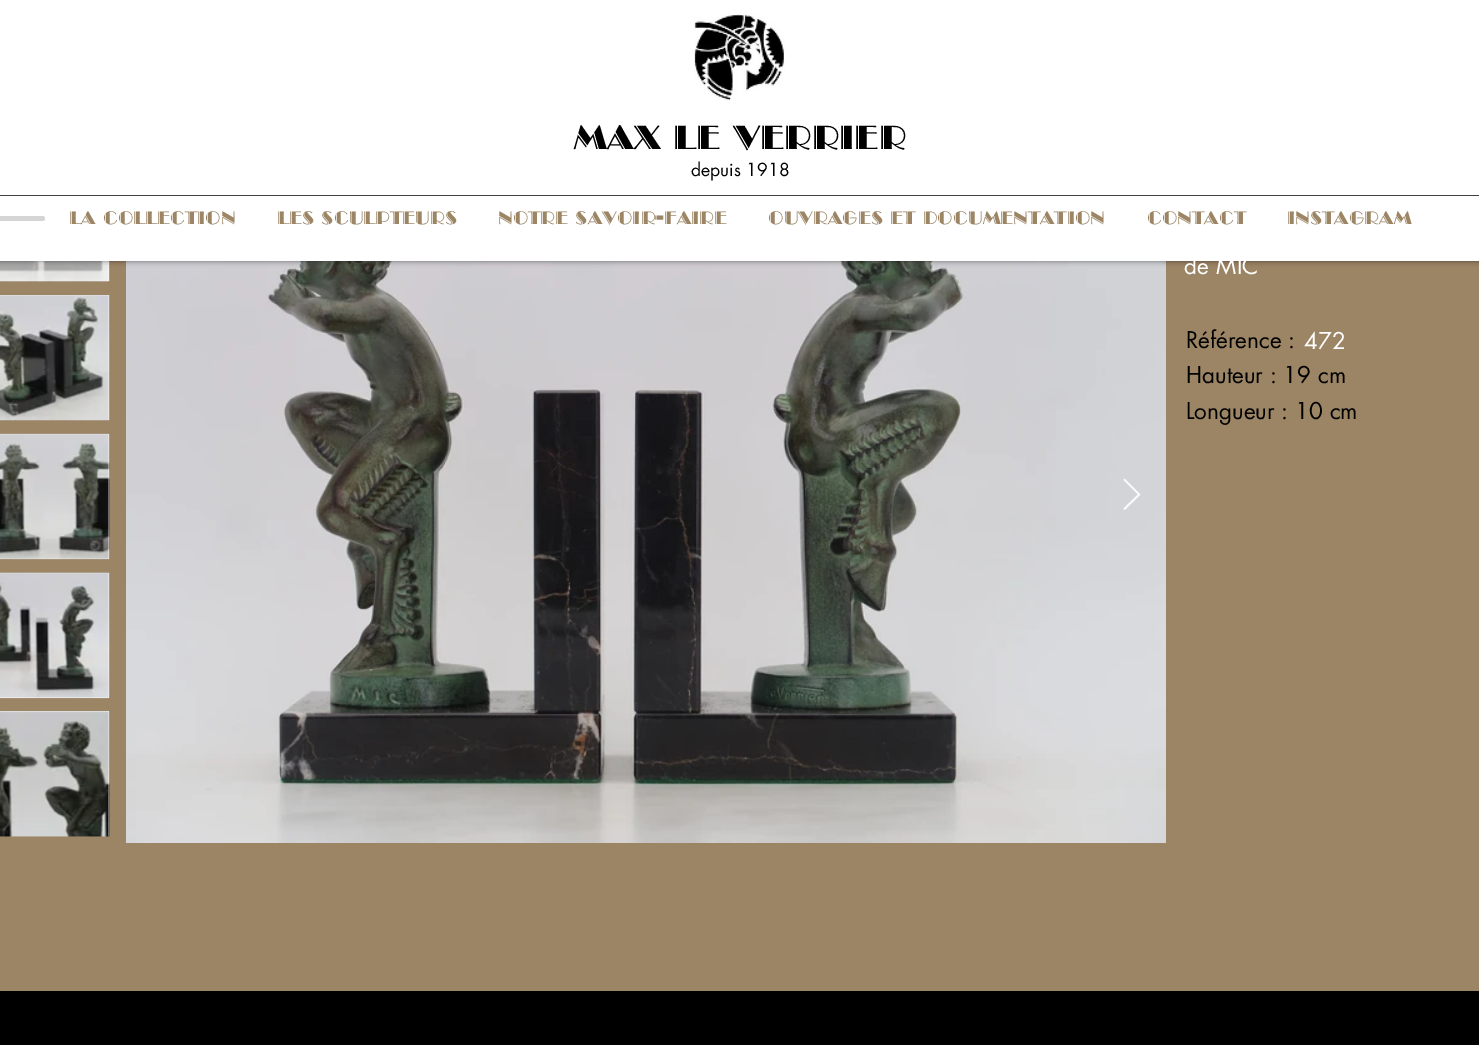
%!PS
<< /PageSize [1479 1045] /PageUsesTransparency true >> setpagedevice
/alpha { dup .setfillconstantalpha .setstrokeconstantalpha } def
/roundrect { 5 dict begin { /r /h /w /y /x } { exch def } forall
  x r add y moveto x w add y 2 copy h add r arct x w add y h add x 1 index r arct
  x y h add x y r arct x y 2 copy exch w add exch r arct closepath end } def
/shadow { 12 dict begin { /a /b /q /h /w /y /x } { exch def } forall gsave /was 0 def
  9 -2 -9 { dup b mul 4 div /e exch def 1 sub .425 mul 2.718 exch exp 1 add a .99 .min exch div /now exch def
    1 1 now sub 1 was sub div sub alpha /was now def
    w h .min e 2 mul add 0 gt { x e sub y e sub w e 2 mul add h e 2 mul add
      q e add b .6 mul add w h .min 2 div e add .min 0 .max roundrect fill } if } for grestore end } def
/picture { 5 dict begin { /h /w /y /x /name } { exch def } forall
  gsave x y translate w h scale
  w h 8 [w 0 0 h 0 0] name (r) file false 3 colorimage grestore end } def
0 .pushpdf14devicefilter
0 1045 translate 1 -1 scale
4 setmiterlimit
0.608 0.522 0.396 setrgbcolor
0 0 1479 1045 rectfill
1 setgray
108 261 1 20 rectfill
(img2.rgb) 0 261 110 21 picture
(img7.rgb) 126 261 1040 582 picture
0 setgray
0 0 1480 261 0 3 0.5 shadow
1 setgray
0 0 1479 261 rectfill
(img1.rgb) 694 14 92 87 picture
/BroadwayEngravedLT-Regular [32.5 0 0 -32.5 0 0] selectfont
0 setgray
574 149 moveto (MAX LE VERRIER) show
/futura-Regular [17.5 0 0 -17.5 0 0] selectfont
691 176 moveto (depuis 1918) show
0.259 setgray
0 195 1479 1 rectfill
0.835 setgray
-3 216 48 5 2.5 roundrect fill
/BroadwayEngravedLT-Regular [17.5 0 0 -17.5 0 0] selectfont
0.608 0.522 0.396 setrgbcolor
69 224 moveto (LA COLLECTION) show
277 224 moveto (LES SCULPTEURS) show
498 224 moveto (NOTRE SAVOIR-FAIRE) show
768 224 moveto (OUVRAGES ET DOCUMENTATION) show
1147 224 moveto (CONTACT) show
1287 224 moveto (INSTAGRAM) show
1 setgray
0 295 109 125 rectfill
(img3.rgb) 0 295 110 126 picture
0 434 109 125 rectfill
(img4.rgb) 0 433 110 127 picture
0 573 109 125 rectfill
(img5.rgb) 0 572 110 127 picture
0 711 109 125 rectfill
(img6.rgb) 0 711 110 126 picture
0.984 setgray
newpath 1123.5 480 moveto 1124.5 478.5 lineto 1140.5 494.5 lineto 1124.5 510 lineto 1123.5 508.5 lineto 1138 494.5 lineto closepath fill
/futura-Regular [22.5 0 0 -22.5 0 0] selectfont
1 setgray
1184 274 moveto 0.25 0 (de MIC) ashow
0 setgray
1186 348 moveto (Référence :) show
1 setgray
1304 349 moveto (472) show
0 setgray
1186 383 moveto (Hauteur : 19 cm) show
1186 419 moveto (Longueur : 10 cm) show
0 991 1479 54 rectfill
.poppdf14devicefilter showpage
